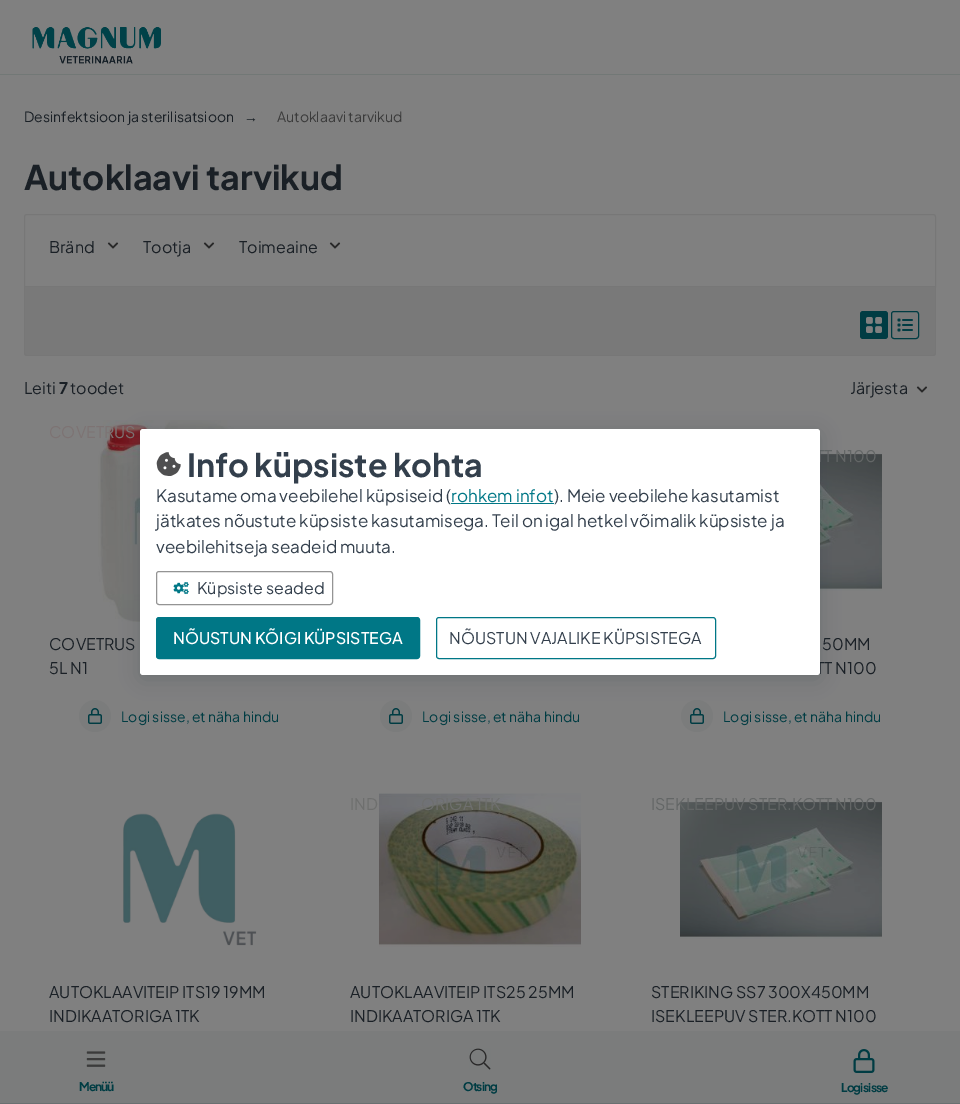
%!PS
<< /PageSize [960 1104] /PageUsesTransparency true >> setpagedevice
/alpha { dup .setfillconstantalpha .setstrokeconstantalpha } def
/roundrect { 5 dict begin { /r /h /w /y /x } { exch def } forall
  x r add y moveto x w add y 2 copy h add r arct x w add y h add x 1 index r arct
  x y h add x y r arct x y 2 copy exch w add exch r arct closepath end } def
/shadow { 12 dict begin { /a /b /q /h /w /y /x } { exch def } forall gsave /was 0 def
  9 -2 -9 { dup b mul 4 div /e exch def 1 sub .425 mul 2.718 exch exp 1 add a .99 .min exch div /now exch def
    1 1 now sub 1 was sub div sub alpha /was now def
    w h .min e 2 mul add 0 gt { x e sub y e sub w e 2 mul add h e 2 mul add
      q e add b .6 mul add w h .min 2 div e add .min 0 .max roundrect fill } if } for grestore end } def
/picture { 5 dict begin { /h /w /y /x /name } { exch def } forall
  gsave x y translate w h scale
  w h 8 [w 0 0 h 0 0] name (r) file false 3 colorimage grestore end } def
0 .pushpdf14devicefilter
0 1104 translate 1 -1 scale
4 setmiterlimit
0.502 setgray
0 0 960 1104 rectfill
/PlusJakartaSans-Regular [14 0 0 -14 0 0] selectfont
0.102 0.125 0.149 setrgbcolor
24 122 moveto (Desinfektsioon ja sterilisatsioon) show
/LiberationSans-Regular [14 0 0 -14 0 0] selectfont
244 122 moveto (→) show
/PlusJakartaSans-Regular [14 0 0 -14 0 0] selectfont
0.231 setgray
277 122 moveto (Autoklaavi tarvikud) show
/PlusJakartaSans-Bold [34 0 0 -34 0 0] selectfont
0.102 0.125 0.149 setrgbcolor
24 190 moveto (Autoklaavi tarvikud) show
0.467 setgray
newpath 27 214.5 moveto 933 214.5 lineto 934.5 214.5 935.5 215.5 935.5 217 curveto 935.5 286.5 lineto 24.5 286.5 lineto 24.5 217 lineto 24.5 215.5 25.5 214.5 27 214.5 curveto closepath stroke
/PlusJakartaSans-Regular [16 0 0 -16 0 0] selectfont
0.102 0.125 0.149 setrgbcolor
49 253 moveto (Bränd) show
(img1.rgb) 107 242 12 7 picture
143 253 moveto (Tootja) show
(img1.rgb) 203 242 12 7 picture
239 253 moveto (Toimeaine) show
(img1.rgb) 329 242 12 7 picture
0.475 setgray
newpath 24 287 moveto 936 287 lineto 936 353 lineto 936 354.5 934.5 356 933 356 curveto 27 356 lineto 25.5 356 24 354.5 24 353 curveto closepath fill
0.467 setgray
newpath 24 287 moveto 936 287 lineto 936 353 lineto 936 355 935 356 933 356 curveto 27 356 lineto 25 356 24 355 24 353 curveto closepath 25 287 moveto 935 287 lineto 935 353 lineto 935 354 934 355 933 355 curveto 27 355 lineto 26 355 25 354 25 353 curveto closepath eofill
0 0.235 0.263 setrgbcolor
860 311 28 28 3 roundrect fill
(img2.rgb) 866 317 16 16 picture
891.5 311.5 27 27 2.5 roundrect stroke
(img3.rgb) 897 318 16 14 picture
0.102 0.125 0.149 setrgbcolor
24 394 moveto (Leiti) show
/PlusJakartaSans-Bold [16 0 0 -16 0 0] selectfont
59 394 moveto (7) show
/PlusJakartaSans-Regular [16 0 0 -16 0 0] selectfont
70 394 moveto (toodet) show
850 394 moveto (Järjesta) show
(img1.rgb) 916 386 12 7 picture
(img4.rgb) 98 420 161 202 picture
0.49 0.451 0.451 setrgbcolor
49 438 moveto (COVETRUS) show
0.102 0.125 0.149 setrgbcolor
49 650 moveto (COVETRUS) show
49 674 moveto (5L N1) show
0.482 0.486 0.486 setrgbcolor
newpath 95 716 16 0 360 arc closepath fill
(img5.rgb) 88 708 14 16 picture
/PlusJakartaSans-Regular [14 0 0 -14 0 0] selectfont
0 0.235 0.263 setrgbcolor
121 722 moveto (Logi sisse, et näha hindu) show
0.482 0.486 0.486 setrgbcolor
newpath 396 716 16 0 360 arc closepath fill
(img5.rgb) 389 708 14 16 picture
0 0.235 0.263 setrgbcolor
422 722 moveto (Logi sisse, et näha hindu) show
(img6.rgb) 820 453 62 138 picture
/PlusJakartaSans-Regular [16 0 0 -16 0 0] selectfont
0.388 0.4 0.4 setrgbcolor
816 462 moveto (TT N100) show
0.102 0.125 0.149 setrgbcolor
822 650 moveto (50MM) show
816 674 moveto (TT N100) show
0.482 0.486 0.486 setrgbcolor
newpath 697 716 16 0 360 arc closepath fill
(img5.rgb) 690 708 14 16 picture
/PlusJakartaSans-Regular [14 0 0 -14 0 0] selectfont
0 0.235 0.263 setrgbcolor
723 722 moveto (Logi sisse, et näha hindu) show
(img7.rgb) 123 813 134 133 picture
/PlusJakartaSans-Regular [16 0 0 -16 0 0] selectfont
0.102 0.125 0.149 setrgbcolor
49 998 moveto (AUTOKLAAVITEIP ITS19 19MM) show
49 1022 moveto (INDIKAATORIGA 1TK) show
(img8.rgb) 379 793 202 154 picture
0.431 0.435 0.431 setrgbcolor
350 810 moveto (IND) show
421 810 moveto (ORIGA 1TK) show
0.102 0.125 0.149 setrgbcolor
350 998 moveto (AUTOKLAAVITEIP ITS25 25MM) show
350 1022 moveto (INDIKAATORIGA 1TK) show
(img9.rgb) 680 801 202 138 picture
0.388 0.4 0.4 setrgbcolor
651 810 moveto (ISEKLEEPUV STER.KOTT N100) show
0.102 0.125 0.149 setrgbcolor
651 998 moveto (STERIKING SS7 300X450MM) show
651 1022 moveto (ISEKLEEPUV STER.KOTT N100) show
0.447 0.471 0.463 setrgbcolor
0 74 960 1 rectfill
(img10.rgb) 32 27 129 37 picture
0.482 0.486 0.486 setrgbcolor
0 1031 960 72 rectfill
0.416 0.435 0.439 setrgbcolor
0 1103 960 1 rectfill
(img11.rgb) 86 1051 20 16 picture
/PlusJakartaSans-Bold [12 0 0 -12 0 0] selectfont
0 0.235 0.263 setrgbcolor
79 1091 moveto -1 0 (Menüü) ashow
(img12.rgb) 469 1048 22 22 picture
463 1091 moveto -1 0 (Otsing) ashow
(img13.rgb) 853 1049 22 24 picture
841 1092 moveto -1 0 (Logi sisse) ashow
0.2 0.247 0.298 setrgbcolor
140 433 680 246 3 10 0.25 shadow
1 setgray
140 429 680 246 3 roundrect fill
(img14.rgb) 156 452 25 24 picture
/PlusJakartaSans-Bold [32 0 0 -32 0 0] selectfont
0.2 0.247 0.298 setrgbcolor
187 477 moveto (Info küpsiste kohta) show
/PlusJakartaSans-Regular [17 0 0 -17 0 0] selectfont
156 502 moveto (Kasutame oma veebilehel küpsiseid \() show
0 0.467 0.525 setrgbcolor
451 502 moveto (rohkem infot) show
451 503 103 1 rectfill
0.2 0.247 0.298 setrgbcolor
554 502 moveto (\). Meie veebilehe kasutamist) show
156 527 moveto (jätkates nõustute küpsiste kasutamisega. Teil on igal hetkel võimalik küpsiste ja) show
156 553 moveto (veebilehitseja seadeid muuta.) show
0.58 setgray
156.5 571.5 176 33 2.5 roundrect stroke
(img15.rgb) 173 582 16 13 picture
/PlusJakartaSans-Regular [16 0 0 -16 0 0] selectfont
0.2 0.247 0.298 setrgbcolor
197 594 moveto (Küpsiste seaded) show
0 0.467 0.525 setrgbcolor
156.5 617.5 263 41 2.5 roundrect gsave fill grestore
stroke
/PlusJakartaSans-Medium [16 0 0 -16 0 0] selectfont
1 setgray
173 644 moveto (NÕUSTUN KÕIGI KÜPSISTEGA) show
0 0.467 0.525 setrgbcolor
436.5 617.5 279 41 2.5 roundrect stroke
/PlusJakartaSans-Regular [16 0 0 -16 0 0] selectfont
0.2 0.247 0.298 setrgbcolor
449 644 moveto (NÕUSTUN VAJALIKE KÜPSISTEGA) show
.poppdf14devicefilter showpage
